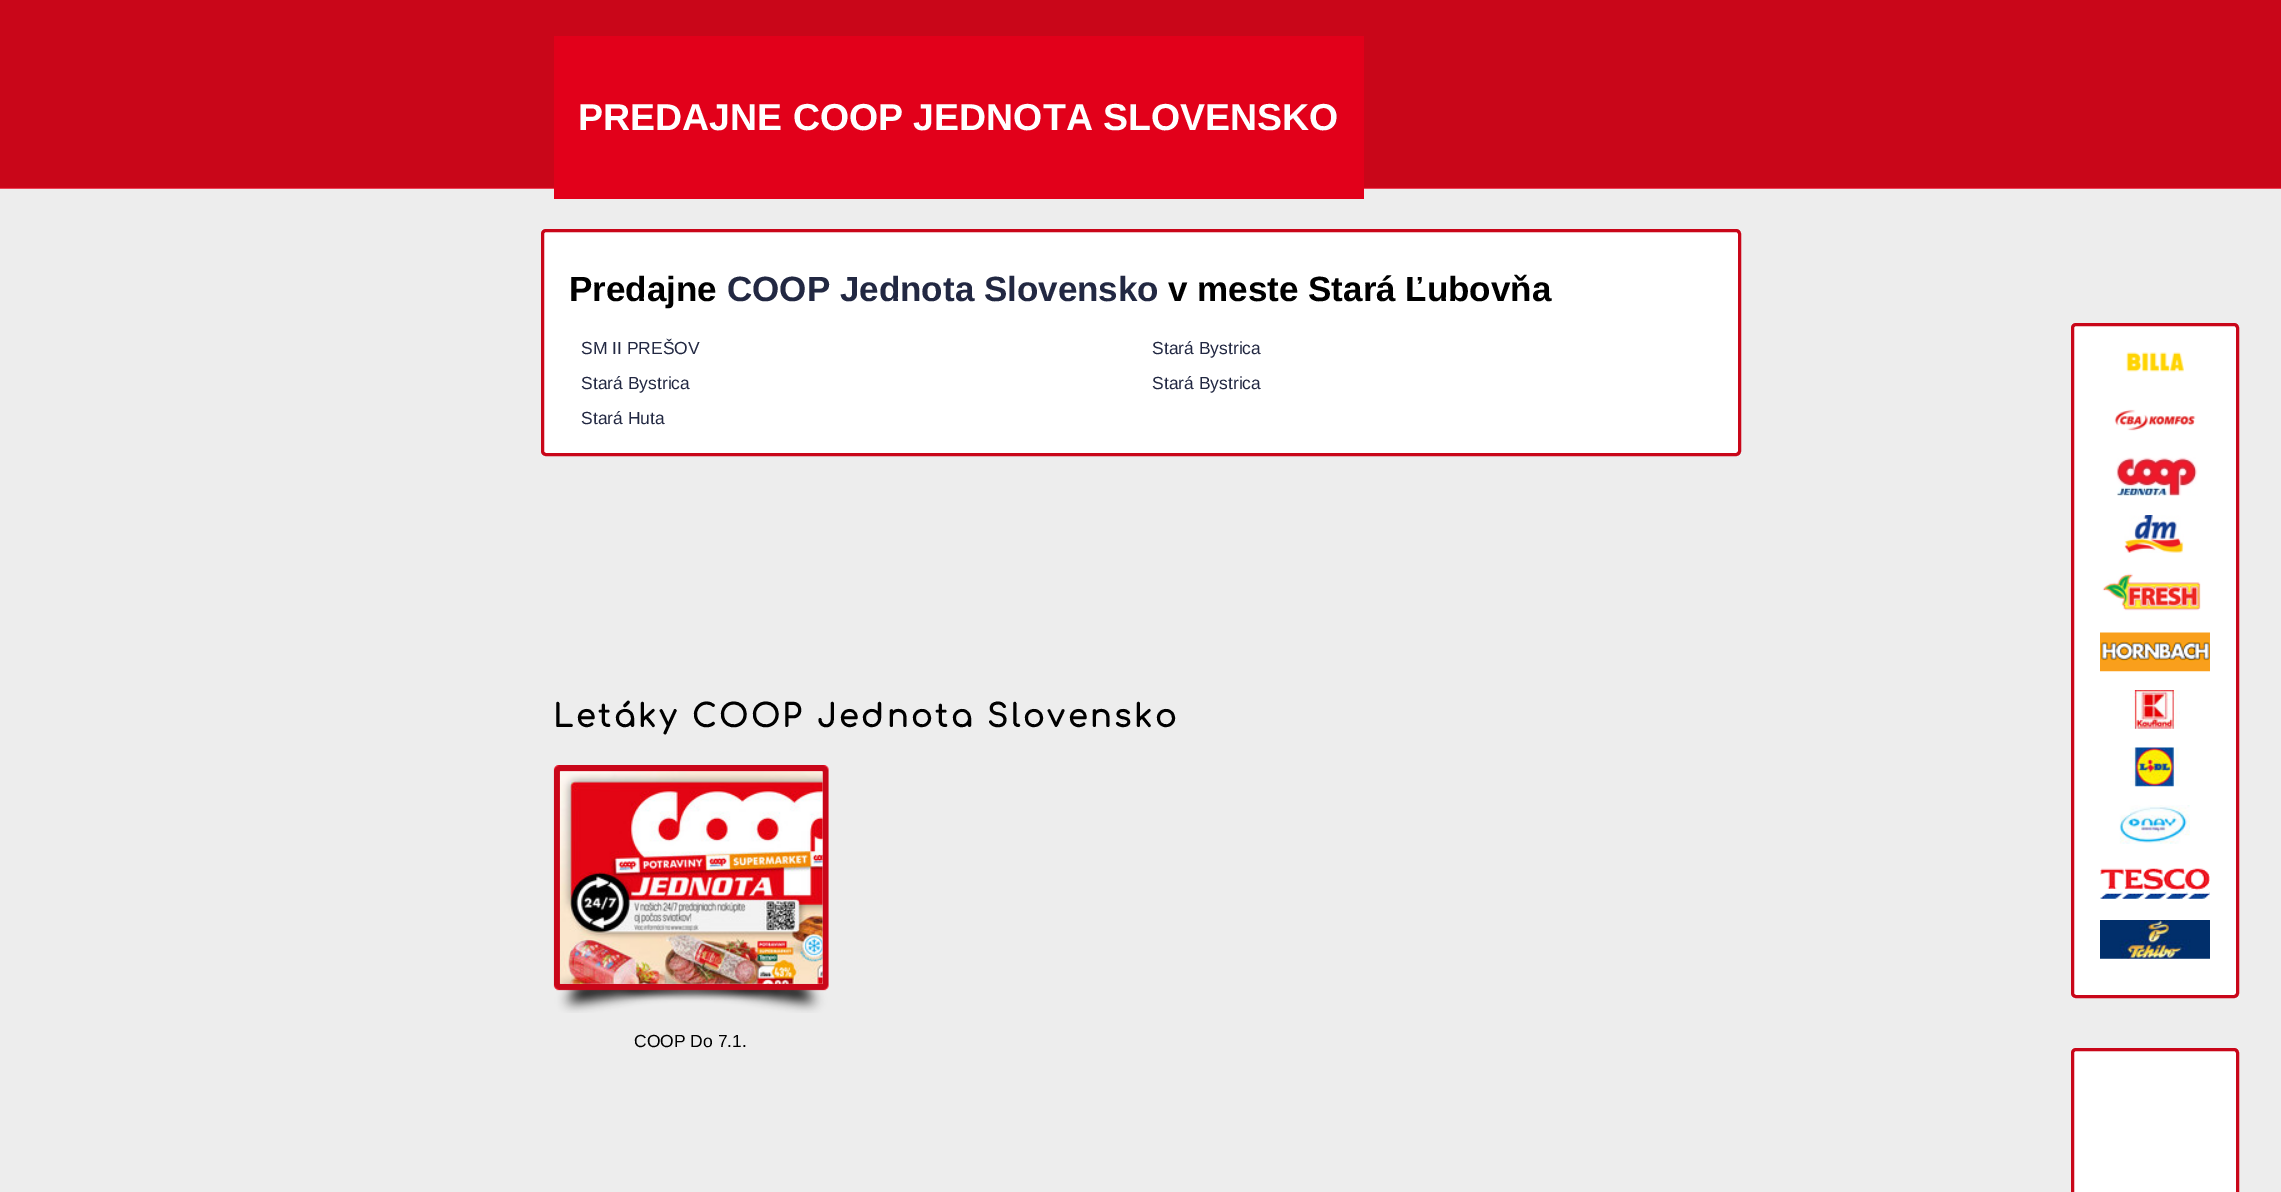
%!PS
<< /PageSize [2281 1192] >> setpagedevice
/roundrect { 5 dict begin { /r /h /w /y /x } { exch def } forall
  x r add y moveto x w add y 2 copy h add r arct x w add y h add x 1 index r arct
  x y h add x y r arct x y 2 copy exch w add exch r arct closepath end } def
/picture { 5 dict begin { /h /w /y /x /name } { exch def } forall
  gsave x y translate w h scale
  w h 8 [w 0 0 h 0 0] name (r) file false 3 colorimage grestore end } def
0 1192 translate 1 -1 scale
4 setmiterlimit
0.929 setgray
0 0 2281 1192 rectfill
(img1.rgb) 0 0 2281 189 picture
0.886 0 0.102 setrgbcolor
554 36 810 163 rectfill
/Arimo-Bold [37.5 0 0 -37.5 0 0] selectfont
1 setgray
578 130 moveto (PREDAJNE COOP JEDNOTA SLOVENSKO) show
542.5 230.5 1197 224 3.5 roundrect gsave fill grestore
0.788 0.024 0.098 setrgbcolor
3 setlinewidth
stroke
/LiberationSans-Bold [35 0 0 -35 0 0] selectfont
0 setgray
569 301 moveto (Predajne) show
0.133 0.157 0.259 setrgbcolor
727 301 moveto (COOP Jednota Slovensko) show
0 setgray
1168 301 moveto (v meste Stará Ľubovňa) show
/LiberationSans-Regular [17.5 0 0 -17.5 0 0] selectfont
0.133 0.157 0.259 setrgbcolor
581 354 moveto (SM II PREŠOV) show
1152 354 moveto (Stará Bystrica) show
581 389 moveto (Stará Bystrica) show
1152 389 moveto (Stará Bystrica) show
581 424 moveto (Stará Huta) show
/Comfortaa-Bold [31.25 0 0 -31.25 0 0] selectfont
0 setgray
553 727 moveto 3.1 0 (Letáky COOP Jednota Slovensko) ashow
(img2.rgb) 553 765 276 248 picture
(img3.rgb) 560 771 263 213 picture
/LiberationSans-Regular [17.5 0 0 -17.5 0 0] selectfont
634 1047 moveto (COOP Do 7.1.) show
1 setgray
2072.5 324.5 165 672 3.5 roundrect gsave fill grestore
0.788 0.024 0.098 setrgbcolor
stroke
(img4.rgb) 2126 352 58 20 picture
(img5.rgb) 2114 409 82 22 picture
(img6.rgb) 2116 457 82 39 picture
(img7.rgb) 2124 515 60 38 picture
(img8.rgb) 2102 573 99 38 picture
(img9.rgb) 2100 632 110 40 picture
(img10.rgb) 2130 690 50 39 picture
(img11.rgb) 2130 747 50 40 picture
(img12.rgb) 2119 805 71 39 picture
(img13.rgb) 2100 868 110 31 picture
(img14.rgb) 2100 920 110 39 picture
1 setgray
2072.5 1049.5 165 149 3.5 roundrect gsave fill grestore
0.788 0.024 0.098 setrgbcolor
stroke
showpage
